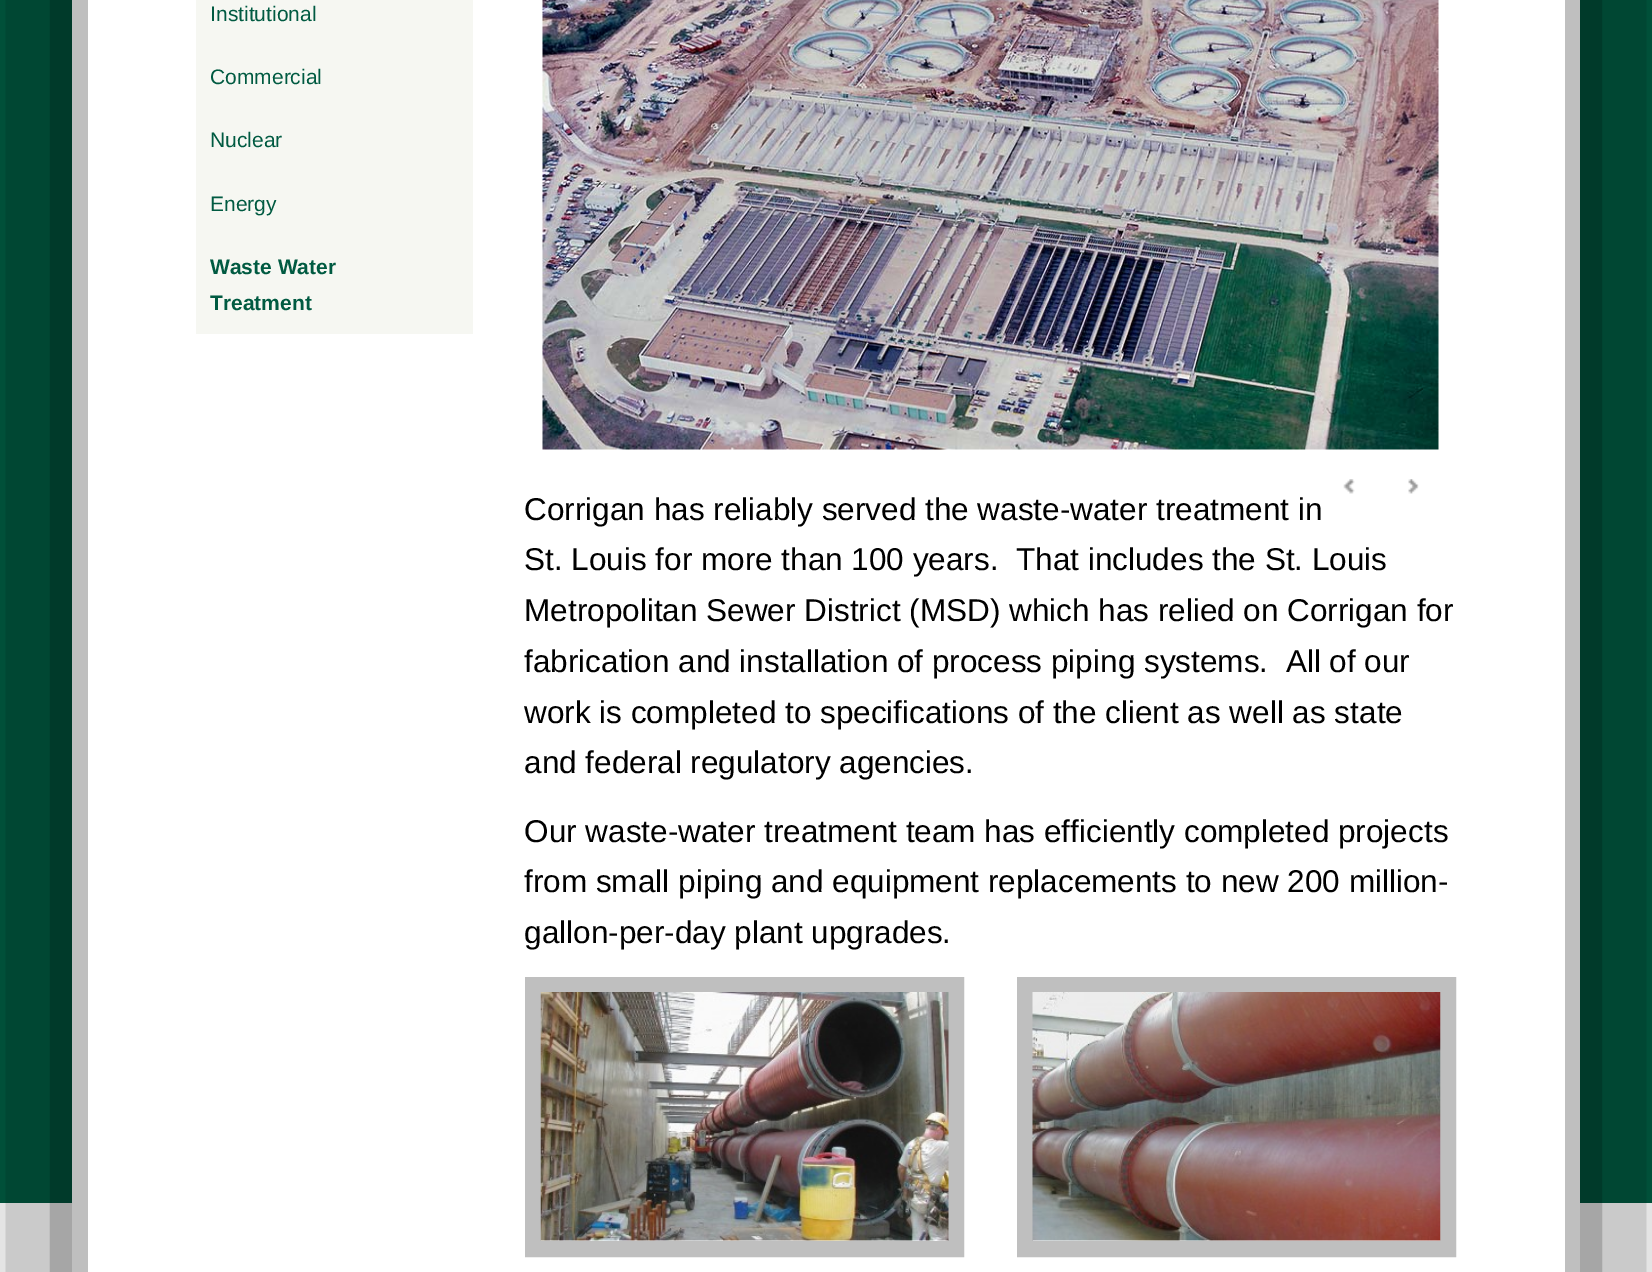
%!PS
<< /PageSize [1652 1272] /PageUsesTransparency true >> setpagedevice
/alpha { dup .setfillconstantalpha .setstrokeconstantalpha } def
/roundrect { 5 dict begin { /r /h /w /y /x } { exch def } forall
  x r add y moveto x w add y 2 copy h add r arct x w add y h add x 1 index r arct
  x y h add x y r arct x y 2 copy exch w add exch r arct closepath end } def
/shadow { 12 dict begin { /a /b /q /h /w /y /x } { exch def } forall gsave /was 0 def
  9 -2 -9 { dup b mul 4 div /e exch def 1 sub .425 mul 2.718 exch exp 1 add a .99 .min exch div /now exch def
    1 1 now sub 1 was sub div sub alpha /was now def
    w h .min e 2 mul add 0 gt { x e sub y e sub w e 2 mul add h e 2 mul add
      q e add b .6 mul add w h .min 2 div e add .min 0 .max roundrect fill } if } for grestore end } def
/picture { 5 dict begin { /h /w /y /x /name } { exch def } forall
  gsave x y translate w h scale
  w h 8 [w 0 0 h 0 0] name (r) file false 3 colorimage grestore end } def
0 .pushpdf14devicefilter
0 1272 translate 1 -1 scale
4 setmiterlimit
1 setgray
0 0 1652 1272 rectfill
0 0.349 0.255 setrgbcolor
0 0 1652 1203 rectfill
0 setgray
72 -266 1508 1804 0 88.5 0.7 shadow
1 setgray
88 0 1477 1272 rectfill
0.749 setgray
1565 0 15 1272 rectfill
72 0 16 1272 rectfill
0.965 0.969 0.949 setrgbcolor
196 0 277 334 rectfill
/LiberationSans-Regular [21 0 0 -21 0 0] selectfont
0 0.353 0.255 setrgbcolor
210 21 moveto (Institutional) show
210 84 moveto (Commercial) show
210 147 moveto (Nuclear) show
210 211 moveto (Energy) show
/LiberationSans-Bold [21 0 0 -21 0 0] selectfont
210 274 moveto (Waste Water) show
210 310 moveto (Treatment) show
(img1.rgb) 542 0 897 450 picture
(img2.rgb) 1343 479 12 15 picture
(img3.rgb) 1408 479 11 15 picture
/LiberationSans-Regular [31.5 0 0 -31.5 0 0] selectfont
0 setgray
524 520 moveto (Corrigan has reliably served the waste-water treatment in) show
524 570 moveto (St. Louis for more than 100 years.  That includes the St. Louis) show
524 621 moveto (Metropolitan Sewer District \(MSD\) which has relied on Corrigan for) show
524 672 moveto (fabrication and installation of process piping systems.  All of our) show
524 723 moveto (work is completed to specifications of the client as well as state) show
524 773 moveto (and federal regulatory agencies.) show
524 842 moveto (Our waste-water treatment team has efficiently completed projects) show
524 892 moveto (from small piping and equipment replacements to new 200 million-) show
524 943 moveto (gallon-per-day plant upgrades.) show
0.749 setgray
16 setlinewidth
533 985 423 264 rectstroke
(img4.rgb) 540 992 409 249 picture
1025 985 423 264 rectstroke
(img5.rgb) 1032 992 409 249 picture
.poppdf14devicefilter showpage
